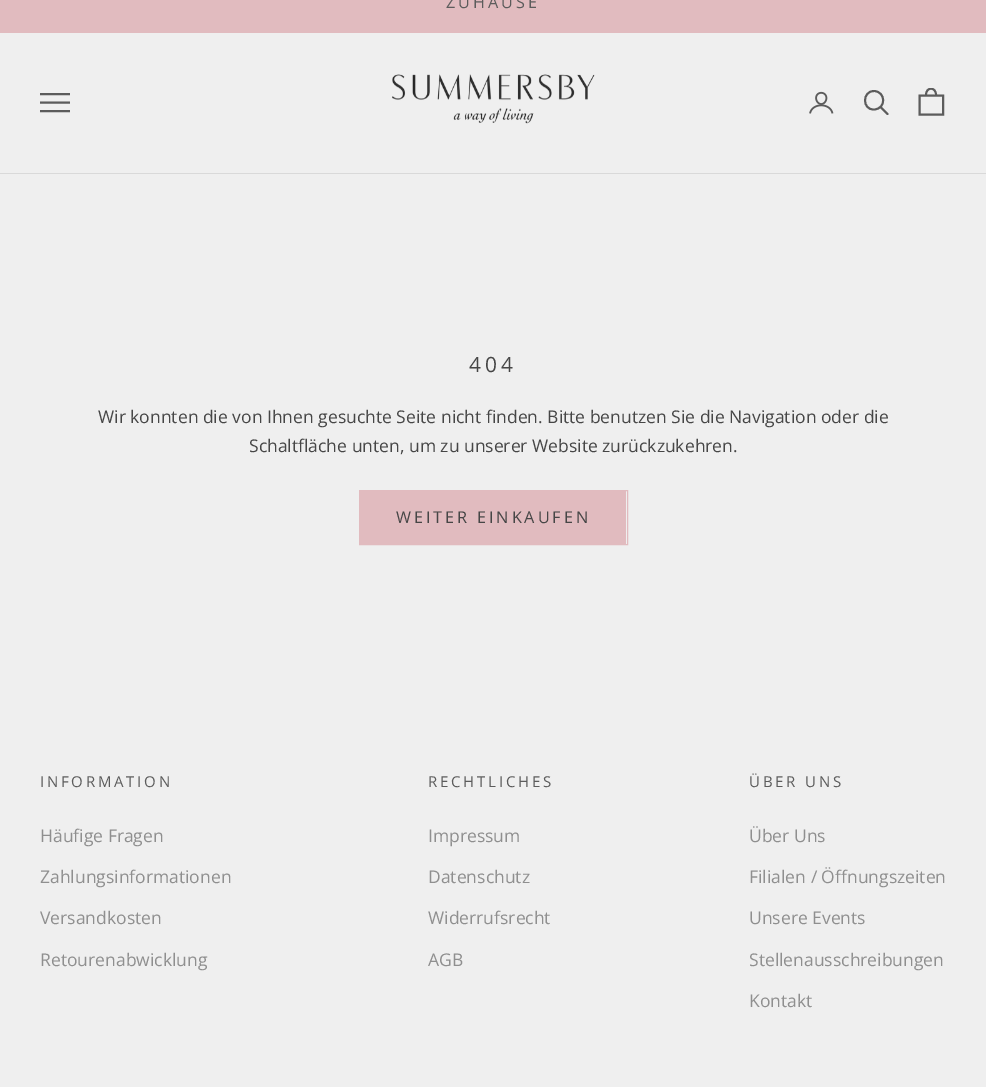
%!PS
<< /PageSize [986 1087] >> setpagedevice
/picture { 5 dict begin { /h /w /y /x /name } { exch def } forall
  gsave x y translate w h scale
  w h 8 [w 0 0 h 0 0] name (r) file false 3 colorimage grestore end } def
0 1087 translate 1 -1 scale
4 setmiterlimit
0.937 setgray
0 0 986 1087 rectfill
0.882 0.733 0.749 setrgbcolor
0 0 986 33 rectfill
/OpenSans-Regular [16.25 0 0 -16.25 0 0] selectfont
0.361 setgray
446 8 moveto 2.9 0 (ZUHAUSE) ashow
0.851 setgray
0 173 986 1 rectfill
0.361 setgray
1.9 setlinewidth
2 setlinecap
newpath 41 111 moveto 69 111 lineto 41 102.5 moveto 69 102.5 lineto 41 94 moveto 69 94 lineto stroke
(img1.rgb) 392 74 203 50 picture
(img2.rgb) 809 91 25 23 picture
0 setlinecap
newpath 874 91 moveto 862 91 862 110 874 109.5 curveto 886.5 109 886 91.5 874 91 curveto closepath stroke
1 setlinecap
newpath 881 107.5 moveto 887.5 114 lineto stroke
gsave
916 88 30 30 rectclip
0 setlinecap
newpath 943 114.5 moveto 943 95.5 lineto 919.5 95.5 lineto 919.5 114.5 lineto closepath 926 95 moveto 926 86.5 936 86.5 936 95 curveto stroke
grestore
/OpenSans-Regular [21 0 0 -21 0 0] selectfont
0.275 setgray
469 372 moveto 4 0 (404) ashow
/OpenSans-Regular [17.5 0 0 -17.5 0 0] selectfont
98 423 moveto (Wir konnten die von Ihnen gesuchte Seite nicht finden. Bitte benutzen Sie die Navigation oder die) show
249 452 moveto (Schaltfläche unten, um zu unserer Website zurückzukehren.) show
0.882 0.733 0.749 setrgbcolor
360 491 266 53 rectfill
1 setlinewidth
0 setlinecap
359.5 490.5 268 54 rectstroke
/OpenSans-Regular [16.25 0 0 -16.25 0 0] selectfont
0.275 setgray
396 523 moveto 2.9 0 (WEITER EINKAUFEN) ashow
/OpenSans-Regular [15 0 0 -15 0 0] selectfont
0.361 setgray
40 787 moveto 2.75 0 (INFORMATION) ashow
/OpenSans-Regular [17.5 0 0 -17.5 0 0] selectfont
0.561 setgray
40 842 moveto (Häufige Fragen) show
40 883 moveto (Zahlungsinformationen) show
40 924 moveto (Versandkosten) show
40 966 moveto (Retourenabwicklung) show
/OpenSans-Regular [15 0 0 -15 0 0] selectfont
0.361 setgray
428 787 moveto 2.75 0 (RECHTLICHES) ashow
/OpenSans-Regular [17.5 0 0 -17.5 0 0] selectfont
0.561 setgray
428 842 moveto (Impressum) show
428 883 moveto (Datenschutz) show
428 924 moveto (Widerrufsrecht) show
428 966 moveto (AGB) show
/OpenSans-Regular [15 0 0 -15 0 0] selectfont
0.361 setgray
749 787 moveto 2.75 0 (ÜBER UNS) ashow
/OpenSans-Regular [17.5 0 0 -17.5 0 0] selectfont
0.561 setgray
749 842 moveto (Über Uns) show
749 883 moveto (Filialen / Öffnungszeiten) show
749 924 moveto (Unsere Events) show
749 966 moveto (Stellenausschreibungen) show
749 1007 moveto (Kontakt) show
showpage
